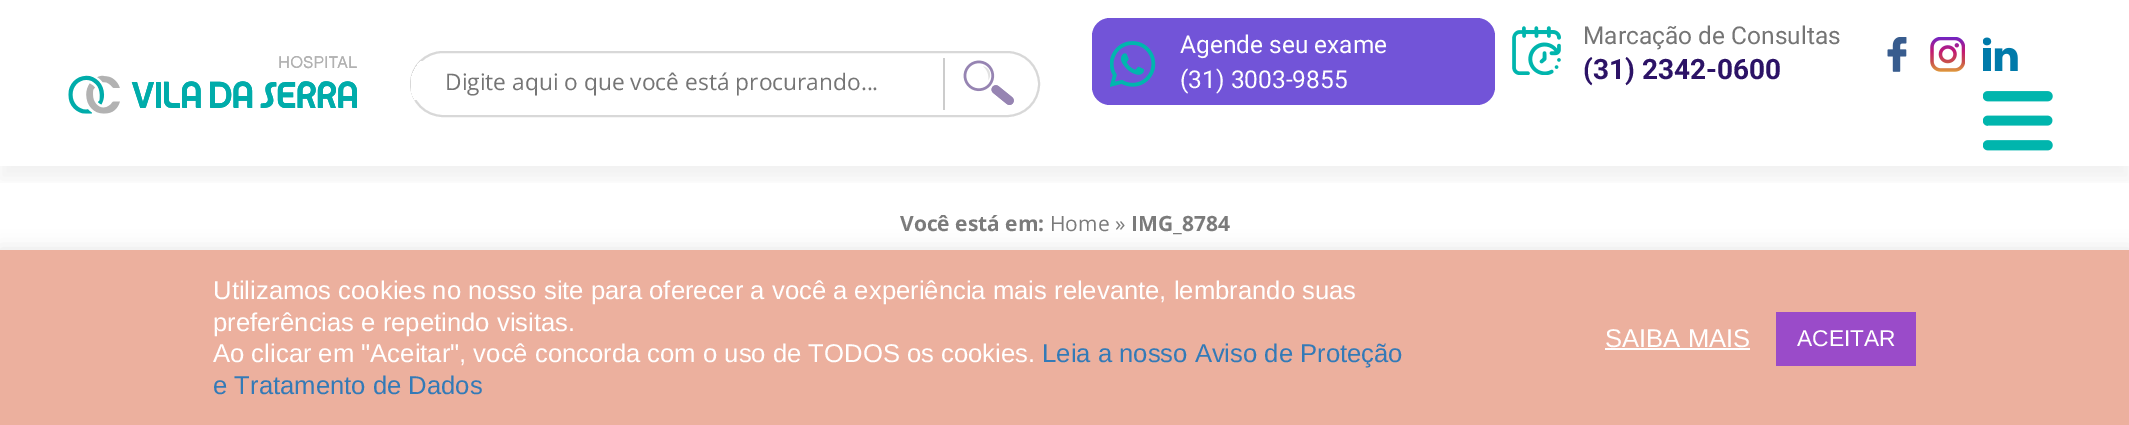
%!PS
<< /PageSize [2129 425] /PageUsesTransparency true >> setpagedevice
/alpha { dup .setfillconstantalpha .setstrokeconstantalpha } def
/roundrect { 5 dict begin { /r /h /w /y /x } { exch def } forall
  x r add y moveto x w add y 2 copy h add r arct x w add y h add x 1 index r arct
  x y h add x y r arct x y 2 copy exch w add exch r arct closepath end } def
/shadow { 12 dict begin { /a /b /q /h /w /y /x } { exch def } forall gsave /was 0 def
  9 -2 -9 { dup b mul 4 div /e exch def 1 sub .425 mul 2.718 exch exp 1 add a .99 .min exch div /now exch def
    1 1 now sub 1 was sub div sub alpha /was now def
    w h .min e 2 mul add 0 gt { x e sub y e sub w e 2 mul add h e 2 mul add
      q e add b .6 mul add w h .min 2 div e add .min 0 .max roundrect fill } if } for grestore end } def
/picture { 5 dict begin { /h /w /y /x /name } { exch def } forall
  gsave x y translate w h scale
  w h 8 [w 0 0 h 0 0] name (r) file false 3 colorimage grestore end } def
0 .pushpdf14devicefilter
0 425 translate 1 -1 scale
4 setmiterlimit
1 setgray
0 0 2129 425 rectfill
gsave
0 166 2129 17 rectclip
0 setgray
0 12 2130 167 0 9 0.06 shadow
grestore
(img1.rgb) 68 56 289 58 picture
0.847 setgray
2 setlinewidth
411 52 628 64 32 roundrect stroke
gsave
411 53 627 63 31.5 roundrect clip newpath
1 setgray
411 61 531 39 rectfill
grestore
/OpenSans-Regular [22.75 0 0 -22.75 0 0] selectfont
0.459 setgray
445 90 moveto (Digite aqui o que você está procurando...) show
(img2.rgb) 963 60 51 45 picture
0.8 setgray
943 58 2 52 rectfill
0.447 0.329 0.847 setrgbcolor
1092 18 403 87 18 roundrect fill
(img3.rgb) 1110 41 46 46 picture
/Roboto-Regular [24.5 0 0 -24.5 0 0] selectfont
1 setgray
1180 53 moveto (Agende seu exame) show
1180 88 moveto (\(31\) 3003-9855) show
(img4.rgb) 1512 26 49 49 picture
0.459 setgray
1583 44 moveto (Marcação de Consultas) show
/Roboto-Bold [28 0 0 -28 0 0] selectfont
0.173 0.075 0.4 setrgbcolor
1583 79 moveto (\(31\) 2342-0600) show
(img5.rgb) 1887 37 20 35 picture
(img6.rgb) 1930 37 35 35 picture
(img7.rgb) 1983 37 35 34 picture
(img8.rgb) 1983 91 70 60 picture
/OpenSans-Bold [21 0 0 -21 0 0] selectfont
0.482 setgray
900 231 moveto (Você está em:) show
/OpenSans-Regular [21 0 0 -21 0 0] selectfont
1050 231 moveto (Home ») show
/OpenSans-Bold [21 0 0 -21 0 0] selectfont
1131 231 moveto (IMG_8784) show
0.675 0.671 0.671 setrgbcolor
0 249 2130 175 0 9 0.3 shadow
0.925 0.69 0.62 setrgbcolor
0 250 2129 175 rectfill
/LiberationSans-Regular [25.65 0 0 -25.65 0 0] selectfont
1 setgray
213 299 moveto (Utilizamos cookies no nosso site para oferecer a você a experiência mais relevante, lembrando suas) show
213 331 moveto (preferências e repetindo visitas.) show
213 362 moveto (Ao clicar em "Aceitar", você concorda com o uso de TODOS os cookies.) show
0.2 0.478 0.718 setrgbcolor
1042 362 moveto (Leia a nosso Aviso de Proteção) show
213 394 moveto (e Tratamento de Dados) show
1 setgray
1605 347 moveto (SAIBA MAIS) show
1605 348 145 2 rectfill
0.604 0.294 0.788 setrgbcolor
1776 312 140 54 rectfill
/LiberationSans-Regular [22.75 0 0 -22.75 0 0] selectfont
1 setgray
1797 346 moveto (ACEITAR) show
.poppdf14devicefilter showpage
